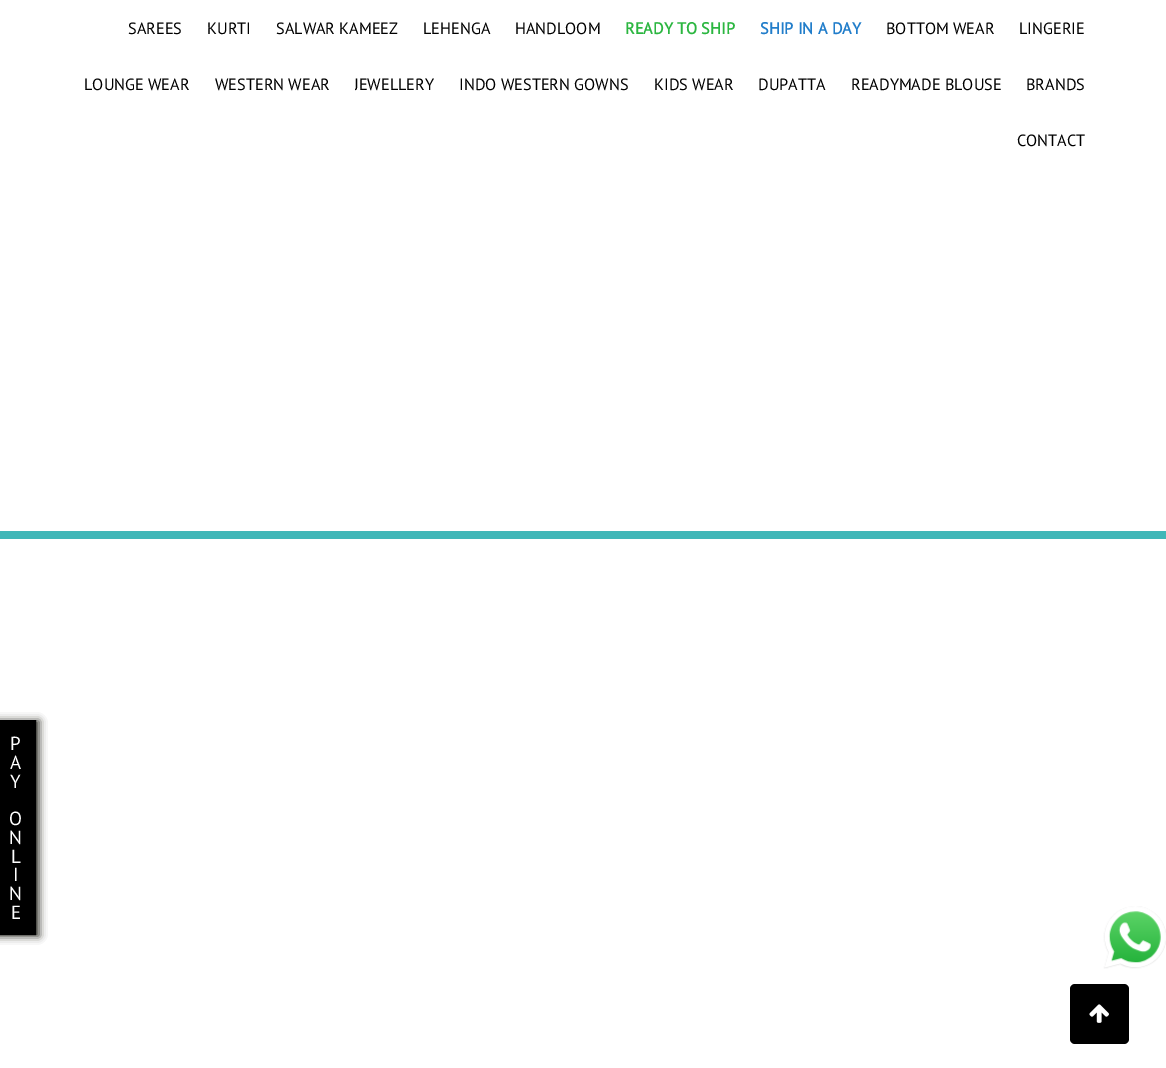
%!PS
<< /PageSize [1166 1068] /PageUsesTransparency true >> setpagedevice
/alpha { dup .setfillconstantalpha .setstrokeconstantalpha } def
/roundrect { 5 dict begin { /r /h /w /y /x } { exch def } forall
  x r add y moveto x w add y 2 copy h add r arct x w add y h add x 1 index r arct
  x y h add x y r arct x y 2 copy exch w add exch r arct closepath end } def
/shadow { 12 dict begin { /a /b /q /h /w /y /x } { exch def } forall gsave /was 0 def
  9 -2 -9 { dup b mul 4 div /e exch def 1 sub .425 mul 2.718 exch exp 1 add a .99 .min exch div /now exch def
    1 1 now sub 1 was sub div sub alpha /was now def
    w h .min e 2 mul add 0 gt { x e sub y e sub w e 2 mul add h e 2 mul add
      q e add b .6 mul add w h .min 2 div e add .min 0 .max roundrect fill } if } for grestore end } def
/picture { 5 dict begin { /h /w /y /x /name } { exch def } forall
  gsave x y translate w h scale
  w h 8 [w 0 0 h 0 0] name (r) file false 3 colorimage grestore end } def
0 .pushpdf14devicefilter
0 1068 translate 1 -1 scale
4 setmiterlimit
1 setgray
0 0 1166 1068 rectfill
/PTSans-Regular [16.25 0 0 -16.25 0 0] selectfont
0 setgray
128 34 moveto (SAREES) show
207 34 moveto (KURTI) show
276 34 moveto (SALWAR KAMEEZ) show
423 34 moveto (LEHENGA) show
515 34 moveto (HANDLOOM) show
/PTSans-Bold [16.25 0 0 -16.25 0 0] selectfont
0.169 0.714 0.251 setrgbcolor
625 34 moveto (READY TO SHIP) show
0.129 0.49 0.792 setrgbcolor
760 34 moveto (SHIP IN A DAY) show
/PTSans-Regular [16.25 0 0 -16.25 0 0] selectfont
0 setgray
886 34 moveto (BOTTOM WEAR) show
1019 34 moveto (LINGERIE) show
84 90 moveto (LOUNGE WEAR) show
215 90 moveto (WESTERN WEAR) show
gsave
355 56 79 57 rectclip
354 90 moveto (JEWELLERY) show
grestore
459 90 moveto (INDO WESTERN GOWNS) show
654 90 moveto (KIDS WEAR) show
758 90 moveto (DUPATTA) show
851 90 moveto (READYMADE BLOUSE) show
1026 90 moveto (BRANDS) show
1017 146 moveto (CONTACT) show
0.251 0.718 0.722 setrgbcolor
0 531 1166 8 rectfill
0.039 0.039 0 setrgbcolor
-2 721 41 215 0 4 0.5 shadow
-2 721 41 215 0 4 0.5 shadow
0 setgray
5 setlinewidth
-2.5 722.5 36 210 rectstroke
0 725 31 205 rectfill
/PTSans-Regular [19 0 0 -19 0 0] selectfont
1 setgray
10 750 moveto (P) show
10 769 moveto (A) show
10 788 moveto (Y) show
9 825 moveto (O) show
9 844 moveto (N) show
11 863 moveto (L) show
13 881 moveto (I) show
9 900 moveto (N) show
11 919 moveto (E) show
(img1.rgb) 1103 906 63 63 picture
0 setgray
1070 984 59 60 5 roundrect fill
(img2.rgb) 1089 1004 20 19 picture
.poppdf14devicefilter showpage
